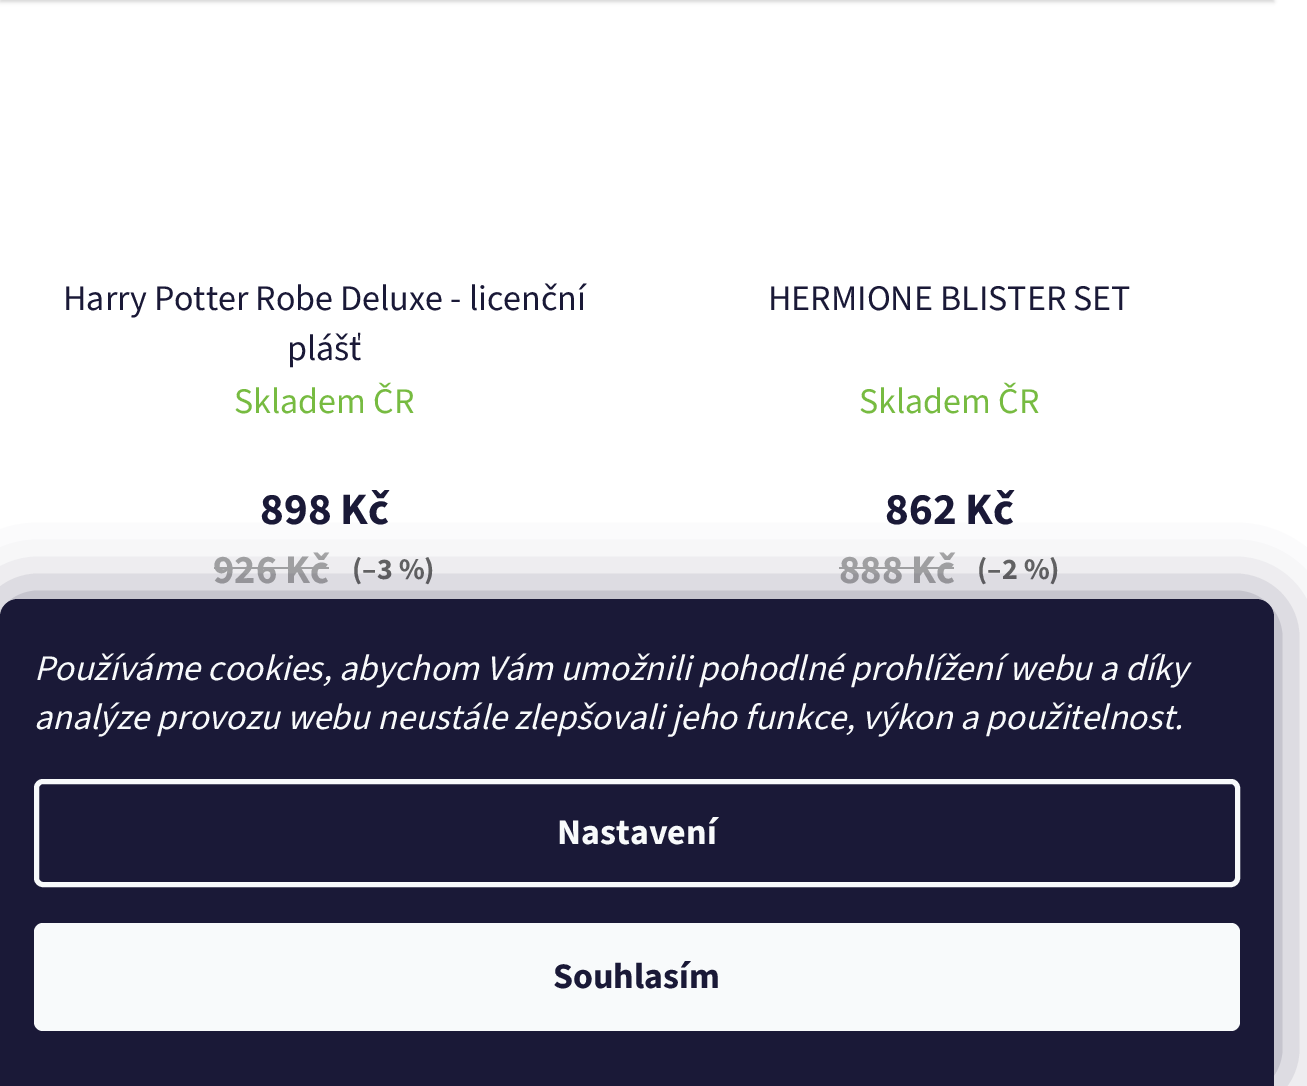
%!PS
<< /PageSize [1307 1086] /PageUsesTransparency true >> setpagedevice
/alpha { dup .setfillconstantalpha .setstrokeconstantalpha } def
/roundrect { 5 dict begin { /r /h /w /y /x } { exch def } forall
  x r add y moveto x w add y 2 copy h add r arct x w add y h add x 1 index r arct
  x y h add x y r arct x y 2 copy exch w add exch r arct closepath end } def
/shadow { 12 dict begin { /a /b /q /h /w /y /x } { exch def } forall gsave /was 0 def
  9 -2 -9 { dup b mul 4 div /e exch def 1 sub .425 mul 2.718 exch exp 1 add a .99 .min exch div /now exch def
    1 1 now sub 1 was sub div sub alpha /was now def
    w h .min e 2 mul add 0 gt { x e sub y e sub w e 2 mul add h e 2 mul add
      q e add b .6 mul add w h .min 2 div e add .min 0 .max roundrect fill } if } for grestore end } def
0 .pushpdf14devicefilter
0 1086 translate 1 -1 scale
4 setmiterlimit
1 setgray
0 0 1307 1086 rectfill
0 setgray
0 -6 1274 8 0 2 0.16 shadow
/SourceSans3-Regular [36 0 0 -36 0 0] selectfont
0.102 0.098 0.216 setrgbcolor
63 310 moveto (Harry Potter Robe Deluxe - licenční) show
287 360 moveto (plášť) show
0.467 0.733 0.255 setrgbcolor
234 413 moveto (Skladem ČR) show
/SourceSans3-Bold [45 0 0 -45 0 0] selectfont
0.102 0.098 0.216 setrgbcolor
260 524 moveto (898 Kč) show
/SourceSans3-Bold [40.5 0 0 -40.5 0 0] selectfont
0.667 setgray
213 583 moveto (926 Kč) show
214 567 115 2 rectfill
/SourceSans3-Bold [30 0 0 -30 0 0] selectfont
0.4 setgray
352 579 moveto (\(–3 %\)) show
/SourceSans3-Regular [36 0 0 -36 0 0] selectfont
0.102 0.098 0.216 setrgbcolor
768 310 moveto (HERMIONE BLISTER SET) show
0.467 0.733 0.255 setrgbcolor
859 413 moveto (Skladem ČR) show
/SourceSans3-Bold [45 0 0 -45 0 0] selectfont
0.102 0.098 0.216 setrgbcolor
885 524 moveto (862 Kč) show
/SourceSans3-Bold [40.5 0 0 -40.5 0 0] selectfont
0.667 setgray
839 583 moveto (888 Kč) show
839 567 115 2 rectfill
/SourceSans3-Bold [30 0 0 -30 0 0] selectfont
0.4 setgray
977 579 moveto (\(–2 %\)) show
0.106 0.098 0.224 setrgbcolor
0 599 1274 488 18 34 0.5 shadow
0.102 0.098 0.216 setrgbcolor
newpath 18 599 moveto 1256 599 lineto 1266 599 1274 607 1274 617 curveto 1274 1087 lineto 0 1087 lineto 0 617 lineto 0 607 8 599 18 599 curveto closepath fill
/SourceSans3-Italic [36 0 0 -36 0 0] selectfont
0.973 0.98 0.984 setrgbcolor
34 680 moveto (Používáme cookies, abychom Vám umožnili pohodlné prohlížení webu a díky) show
34 729 moveto (analýze provozu webu neustále zlepšovali jeho funkce, výkon a použitelnost.) show
5 setlinewidth
36.5 781.5 1201 103 6.5 roundrect stroke
/SourceSans3-Bold [36 0 0 -36 0 0] selectfont
557 844 moveto (Nastavení) show
34 923 1206 108 9 roundrect fill
0.102 0.098 0.216 setrgbcolor
553 988 moveto (Souhlasím) show
.poppdf14devicefilter showpage
